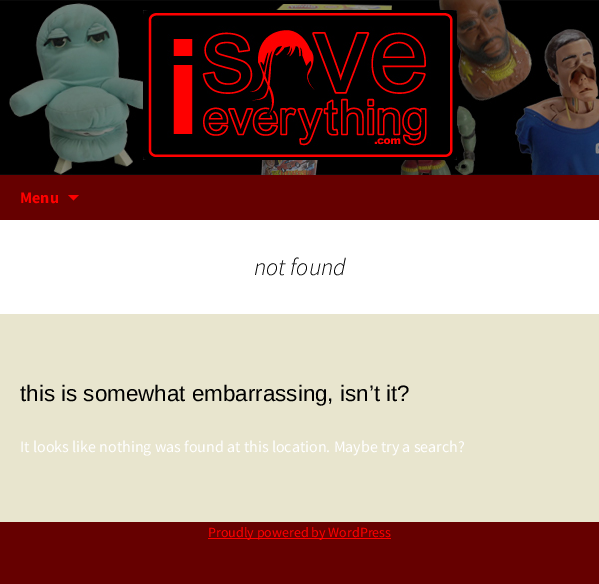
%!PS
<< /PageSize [599 584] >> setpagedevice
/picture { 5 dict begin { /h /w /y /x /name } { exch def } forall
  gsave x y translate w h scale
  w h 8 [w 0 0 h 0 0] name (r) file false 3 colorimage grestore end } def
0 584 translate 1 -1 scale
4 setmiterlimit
0.4 0 0 setrgbcolor
0 0 599 584 rectfill
(img1.rgb) 0 0 599 175 picture
(img2.rgb) 143 10 314 150 picture
/SourceSansPro-Bold [16 0 0 -16 0 0] selectfont
1 0 0 setrgbcolor
20 203 moveto (Menu) show
newpath 68 195 moveto 73.5 200.5 lineto 79 195 lineto closepath fill
1 setgray
0 220 599 94 rectfill
/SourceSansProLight-LightItalic [24 0 0 -24 0 0] selectfont
0 setgray
254 275 moveto (not found) show
0.91 0.898 0.808 setrgbcolor
0 314 599 208 rectfill
/LiberationSans-Regular [22.4 0 0 -22.4 0 0] selectfont
0 setgray
20 401 moveto (this is somewhat embarrassing, isn’t it?) show
/SourceSansPro-Regular [16 0 0 -16 0 0] selectfont
1 setgray
20 452 moveto (It looks like nothing was found at this location. Maybe try a search?) show
1 0 0 setrgbcolor
208 538 183 1 rectfill
/SourceSansPro-Regular [14 0 0 -14 0 0] selectfont
208 537 moveto (Proudly powered by WordPress) show
showpage
